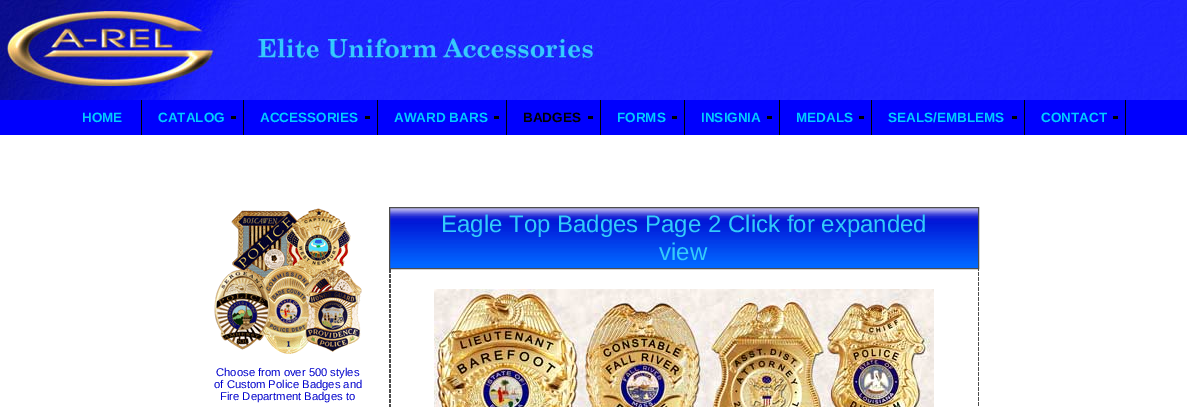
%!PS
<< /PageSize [1187 407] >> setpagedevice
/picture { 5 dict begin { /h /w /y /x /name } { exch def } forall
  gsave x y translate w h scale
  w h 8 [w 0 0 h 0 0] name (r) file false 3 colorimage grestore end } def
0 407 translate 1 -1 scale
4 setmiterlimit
1 setgray
0 0 1187 407 rectfill
(img1.rgb) 681 0 506 100 picture
(img2.rgb) 0 0 681 100 picture
0 0 0.996 setrgbcolor
0 100 1187 35 rectfill
0 setgray
141 100 1 35 rectfill
/LiberationSans-Bold [13.5 0 0 -13.5 0 0] selectfont
0 0.8 1 setrgbcolor
82 122 moveto (HOME) show
0 setgray
231 116 5 3 rectfill
243 100 1 35 rectfill
0 0.8 1 setrgbcolor
158 122 moveto (CATALOG) show
0 setgray
365 116 5 3 rectfill
377 100 1 35 rectfill
0 0.8 1 setrgbcolor
260 122 moveto (ACCESSORIES) show
0 setgray
494 116 5 3 rectfill
506 100 1 35 rectfill
0 0.8 1 setrgbcolor
394 122 moveto (AWARD BARS) show
0 setgray
588 116 5 3 rectfill
600 100 1 35 rectfill
523 122 moveto (BADGES) show
672 116 5 3 rectfill
684 100 1 35 rectfill
0 0.8 1 setrgbcolor
617 122 moveto (FORMS) show
0 setgray
767 116 5 3 rectfill
779 100 1 35 rectfill
0 0.8 1 setrgbcolor
701 122 moveto (INSIGNIA) show
0 setgray
859 116 5 3 rectfill
871 100 1 35 rectfill
0 0.8 1 setrgbcolor
796 122 moveto (MEDALS) show
0 setgray
1012 116 5 3 rectfill
1024 100 1 35 rectfill
0 0.8 1 setrgbcolor
888 122 moveto (SEALS/EMBLEMS) show
0 setgray
1113 116 5 3 rectfill
1125 100 1 35 rectfill
0 0.8 1 setrgbcolor
1041 122 moveto (CONTACT) show
(img3.rgb) 978 269 1 137 picture
(img4.rgb) 390 208 588 60 picture
0.302 setgray
389.5 207.5 589 61 rectstroke
/LiberationSans-Regular [24 0 0 -24 0 0] selectfont
0.2 0.796 0.98 setrgbcolor
441 232 moveto (Eagle Top Badges Page 2 Click for expanded) show
659 260 moveto (view) show
(img5.rgb) 389 269 2 138 picture
(img6.rgb) 434 289 500 118 picture
(img7.rgb) 214 208 148 146 picture
/LiberationSans-Regular [11.25 0 0 -11.25 0 0] selectfont
0 0 0.8 setrgbcolor
216 376 moveto (Choose from over 500 styles) show
214 388 moveto (of Custom Police Badges and) show
220 400 moveto (Fire Department Badges to) show
showpage
